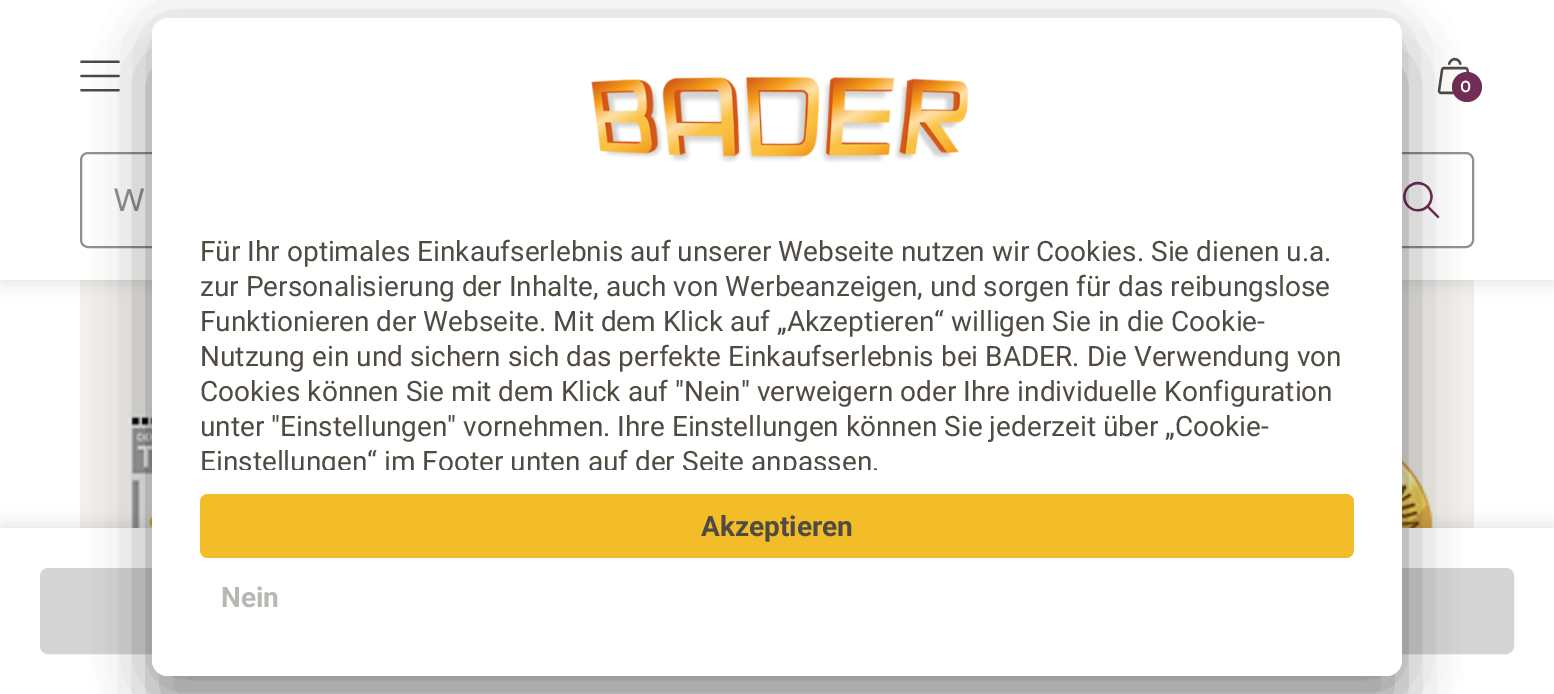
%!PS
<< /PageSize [1554 694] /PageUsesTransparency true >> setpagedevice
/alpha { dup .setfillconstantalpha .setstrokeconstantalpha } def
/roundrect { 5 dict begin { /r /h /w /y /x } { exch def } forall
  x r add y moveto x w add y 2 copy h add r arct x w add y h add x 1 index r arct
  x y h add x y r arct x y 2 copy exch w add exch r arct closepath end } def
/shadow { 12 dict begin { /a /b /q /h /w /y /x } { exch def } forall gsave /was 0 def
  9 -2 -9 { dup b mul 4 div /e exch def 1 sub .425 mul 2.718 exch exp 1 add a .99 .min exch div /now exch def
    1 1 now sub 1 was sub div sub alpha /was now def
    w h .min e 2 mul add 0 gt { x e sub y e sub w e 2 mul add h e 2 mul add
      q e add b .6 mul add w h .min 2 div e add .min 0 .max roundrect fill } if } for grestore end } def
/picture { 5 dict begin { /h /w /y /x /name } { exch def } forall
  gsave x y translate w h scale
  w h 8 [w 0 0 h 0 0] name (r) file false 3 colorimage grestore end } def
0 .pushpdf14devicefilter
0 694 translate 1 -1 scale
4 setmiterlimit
1 setgray
0 0 1554 694 rectfill
0.949 0.941 0.925 setrgbcolor
80 280 1394 248 rectfill
0 setgray
0 4 1554 280 0 8 0.1 shadow
1 setgray
0 0 1554 280 rectfill
(img1.rgb) 80 60 40 32 picture
(img2.rgb) 1437 57 33 38 picture
0.443 0.176 0.337 setrgbcolor
newpath 1467 87 15 0 360 arc closepath fill
/Cabin-Bold [16 0 0 -16 0 0] selectfont
1 setgray
1460 92 moveto (0) show
0.569 setgray
2 setlinewidth
81 153 1392 94 7 roundrect stroke
/Cabin-Regular [32 0 0 -32 0 0] selectfont
114 211 moveto (W) show
(img3.rgb) 1403 181 37 38 picture
(img4.rgb) 127 409 25 119 picture
(img5.rgb) 1402 459 31 69 picture
0 setgray
0 524 1554 166 0 8 0.1 shadow
1 setgray
0 528 1554 166 rectfill
0.835 setgray
42 570 1470 82 6 roundrect gsave fill grestore
4 setlinewidth
stroke
0 setgray
152 58 1250 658 16 28 0.3 shadow
152 28 1250 658 16 26 0.22 shadow
1 setgray
152 18 1250 658 16 roundrect fill
(img6.rgb) 591 76 378 87 picture
/Roboto-Regular [28 0 0 -28 0 0] selectfont
0.31 0.294 0.263 setrgbcolor
200 261 moveto (Für Ihr optimales Einkaufserlebnis auf unserer Webseite nutzen wir Cookies. Sie dienen u.a.) show
200 296 moveto (zur Personalisierung der Inhalte, auch von Werbeanzeigen, und sorgen für das reibungslose) show
200 331 moveto (Funktionieren der Webseite. Mit dem Klick auf „Akzeptieren“ willigen Sie in die Cookie-) show
200 366 moveto (Nutzung ein und sichern sich das perfekte Einkaufserlebnis bei BADER. Die Verwendung von) show
200 401 moveto (Cookies können Sie mit dem Klick auf "Nein" verweigern oder Ihre individuelle Konfiguration) show
200 436 moveto (unter "Einstellungen" vornehmen. Ihre Einstellungen können Sie jederzeit über „Cookie-) show
gsave
newpath 168 18 moveto 1386 18 lineto 1395 18 1402 25 1402 34 curveto 1402 470 lineto 152 470 lineto 152 34 lineto 152 25 159 18 168 18 curveto closepath clip newpath
200 471 moveto (Einstellungen“ im Footer unten auf der Seite anpassen.) show
grestore
1 setgray
newpath 152 470 moveto 1402 470 lineto 1402 660 lineto 1402 669 1395 676 1386 676 curveto 168 676 lineto 159 676 152 669 152 660 curveto closepath fill
0.949 0.741 0.161 setrgbcolor
200 494 1154 64 8 roundrect fill
/Roboto-Bold [28 0 0 -28 0 0] selectfont
0.31 0.294 0.263 setrgbcolor
701 536 moveto (Akzeptieren) show
0.725 0.718 0.706 setrgbcolor
221 607 moveto (Nein) show
.poppdf14devicefilter showpage
